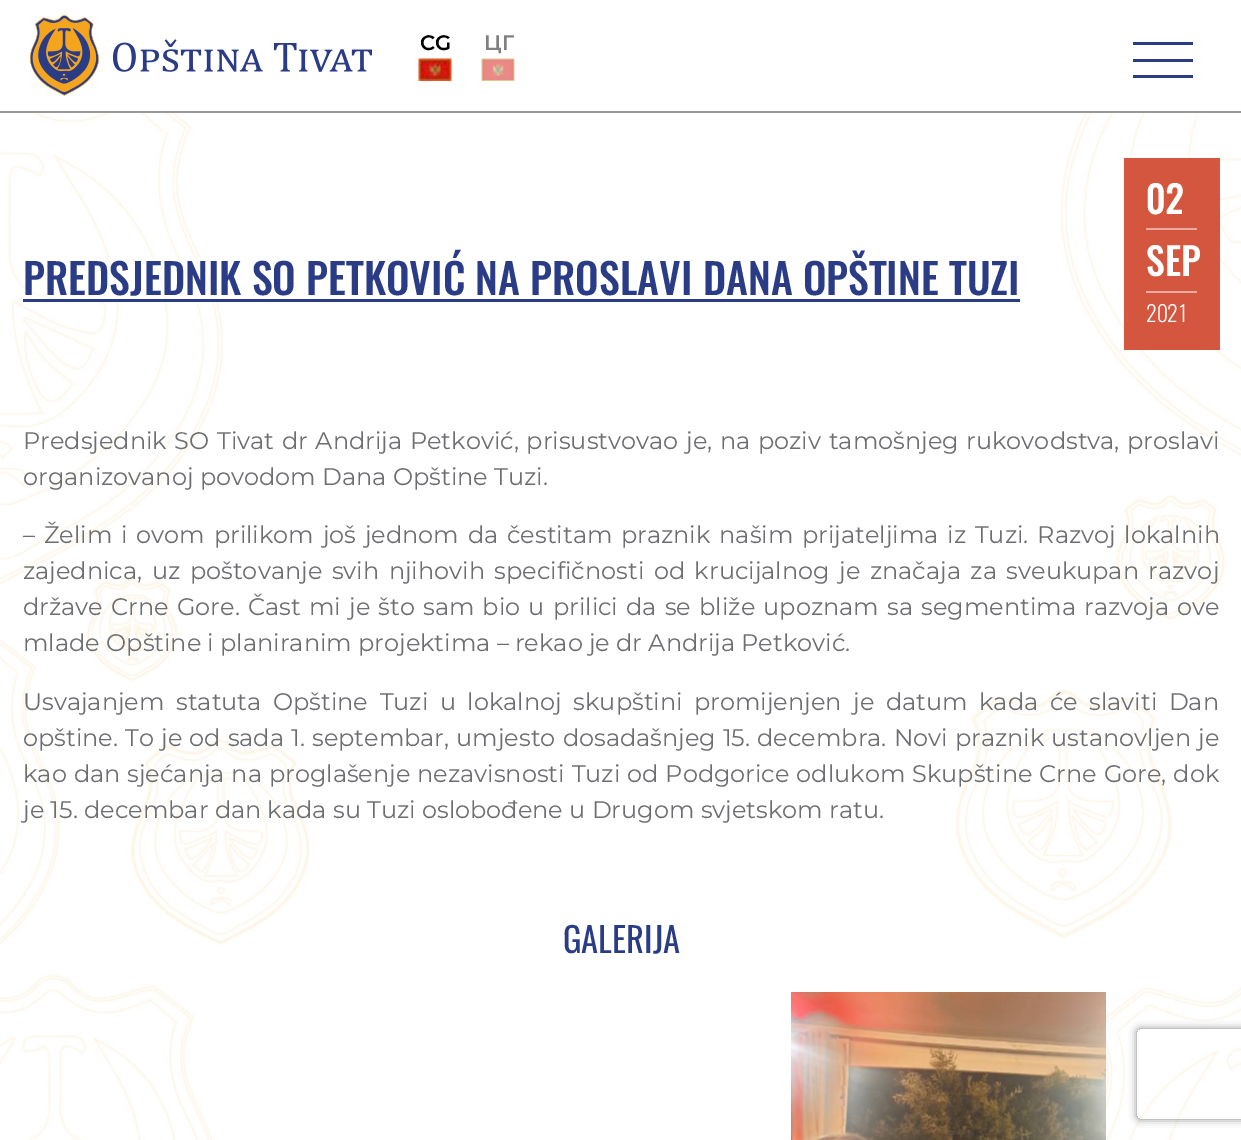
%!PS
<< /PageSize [1241 1140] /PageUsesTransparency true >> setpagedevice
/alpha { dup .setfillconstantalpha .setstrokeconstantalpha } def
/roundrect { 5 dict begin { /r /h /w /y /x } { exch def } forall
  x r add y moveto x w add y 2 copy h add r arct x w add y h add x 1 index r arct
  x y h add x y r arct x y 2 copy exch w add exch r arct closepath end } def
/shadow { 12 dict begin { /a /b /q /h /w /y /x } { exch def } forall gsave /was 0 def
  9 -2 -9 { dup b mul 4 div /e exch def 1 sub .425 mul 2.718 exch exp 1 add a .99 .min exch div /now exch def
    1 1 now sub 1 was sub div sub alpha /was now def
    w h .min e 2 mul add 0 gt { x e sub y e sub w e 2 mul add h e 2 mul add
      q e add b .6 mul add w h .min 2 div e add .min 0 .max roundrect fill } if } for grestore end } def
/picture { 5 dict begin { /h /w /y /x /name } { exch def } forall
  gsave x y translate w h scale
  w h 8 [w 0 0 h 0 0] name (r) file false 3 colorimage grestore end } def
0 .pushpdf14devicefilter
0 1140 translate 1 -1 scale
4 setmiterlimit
1 setgray
0 0 1241 1140 rectfill
(img1.rgb) 0 113 1241 1027 picture
0.6 setgray
0 111 1241 2 rectfill
(img2.rgb) 30 15 342 81 picture
/Montserrat-SemiBold [21 0 0 -21 0 0] selectfont
0 setgray
420 50 moveto (CG) show
(img3.rgb) 418 58 34 23 picture
0.502 setgray
484 50 moveto (ЦГ) show
(img4.rgb) 481 58 34 23 picture
0.169 0.235 0.525 setrgbcolor
1133 42 60 3 rectfill
1133 59 60 3 rectfill
1133 75 60 3 rectfill
/Oswald-Medium [42 0 0 -42 0 0] selectfont
23 295 moveto (PREDSJEDNIK SO PETKOVIĆ NA PROSLAVI DANA OPŠTINE TUZI) show
23 299 997 3 rectfill
0.835 0.337 0.243 setrgbcolor
1124 158 96 192 rectfill
0.918 0.671 0.624 setrgbcolor
1146 228 51 2 rectfill
/Oswald-Medium [38 0 0 -38 0 0] selectfont
1 setgray
1146 214 moveto (02) show
0.918 0.671 0.624 setrgbcolor
1146 291 51 2 rectfill
1 setgray
1146 276 moveto (SEP) show
/Oswald-Light [22 0 0 -22 0 0] selectfont
1146 322 moveto (2021) show
/Montserrat-Regular [24 0 0 -24 0 0] selectfont
0.427 0.431 0.443 setrgbcolor
23 449 moveto 1.4 0 32 (Predsjednik SO Tivat dr Andrija Petković, prisustvovao je, na poziv tamošnjeg rukovodstva, proslavi) widthshow
23 485 moveto (organizovanoj povodom Dana Opštine Tuzi.) show
23 543 moveto 2.5 0 32 (– Želim i ovom prilikom još jednom da čestitam praznik našim prijateljima iz Tuzi. Razvoj lokalnih) widthshow
23 579 moveto 3.25 0 32 (zajednica, uz poštovanje svih njihovih specifičnosti od krucijalnog je značaja za sveukupan razvoj) widthshow
23 615 moveto 1.9 0 32 (države Crne Gore. Čast mi je što sam bio u prilici da se bliže upoznam sa segmentima razvoja ove) widthshow
23 651 moveto (mlade Opštine i planiranim projektima – rekao je dr Andrija Petković.) show
23 710 moveto 5.25 0 32 (Usvajanjem statuta Opštine Tuzi u lokalnoj skupštini promijenjen je datum kada će slaviti Dan) widthshow
23 746 moveto 0.8 0 32 (opštine. To je od sada 1. septembar, umjesto dosadašnjeg 15. decembra. Novi praznik ustanovljen je) widthshow
23 782 moveto 0.6 0 32 (kao dan sjećanja na proglašenje nezavisnosti Tuzi od Podgorice odlukom Skupštine Crne Gore, dok) widthshow
23 818 moveto (je 15. decembar dan kada su Tuzi oslobođene u Drugom svjetskom ratu.) show
/Oswald-Regular [34.5 0 0 -34.5 0 0] selectfont
0.169 0.235 0.525 setrgbcolor
563 953 moveto (GALERIJA) show
(img5.rgb) 791 992 315 148 picture
gsave
newpath 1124 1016 moveto 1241 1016 lineto 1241 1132 lineto 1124 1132 lineto closepath 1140 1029 moveto 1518 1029 lineto 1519.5 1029 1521 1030.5 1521 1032 curveto 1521 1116 lineto 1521 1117.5 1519.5 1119 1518 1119 curveto 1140 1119 lineto 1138.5 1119 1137 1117.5 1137 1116 curveto 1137 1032 lineto 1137 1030.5 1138.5 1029 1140 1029 curveto closepath eoclip newpath
0.502 setgray
1137 1029 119 90 3 4 1 shadow
grestore
.poppdf14devicefilter showpage
